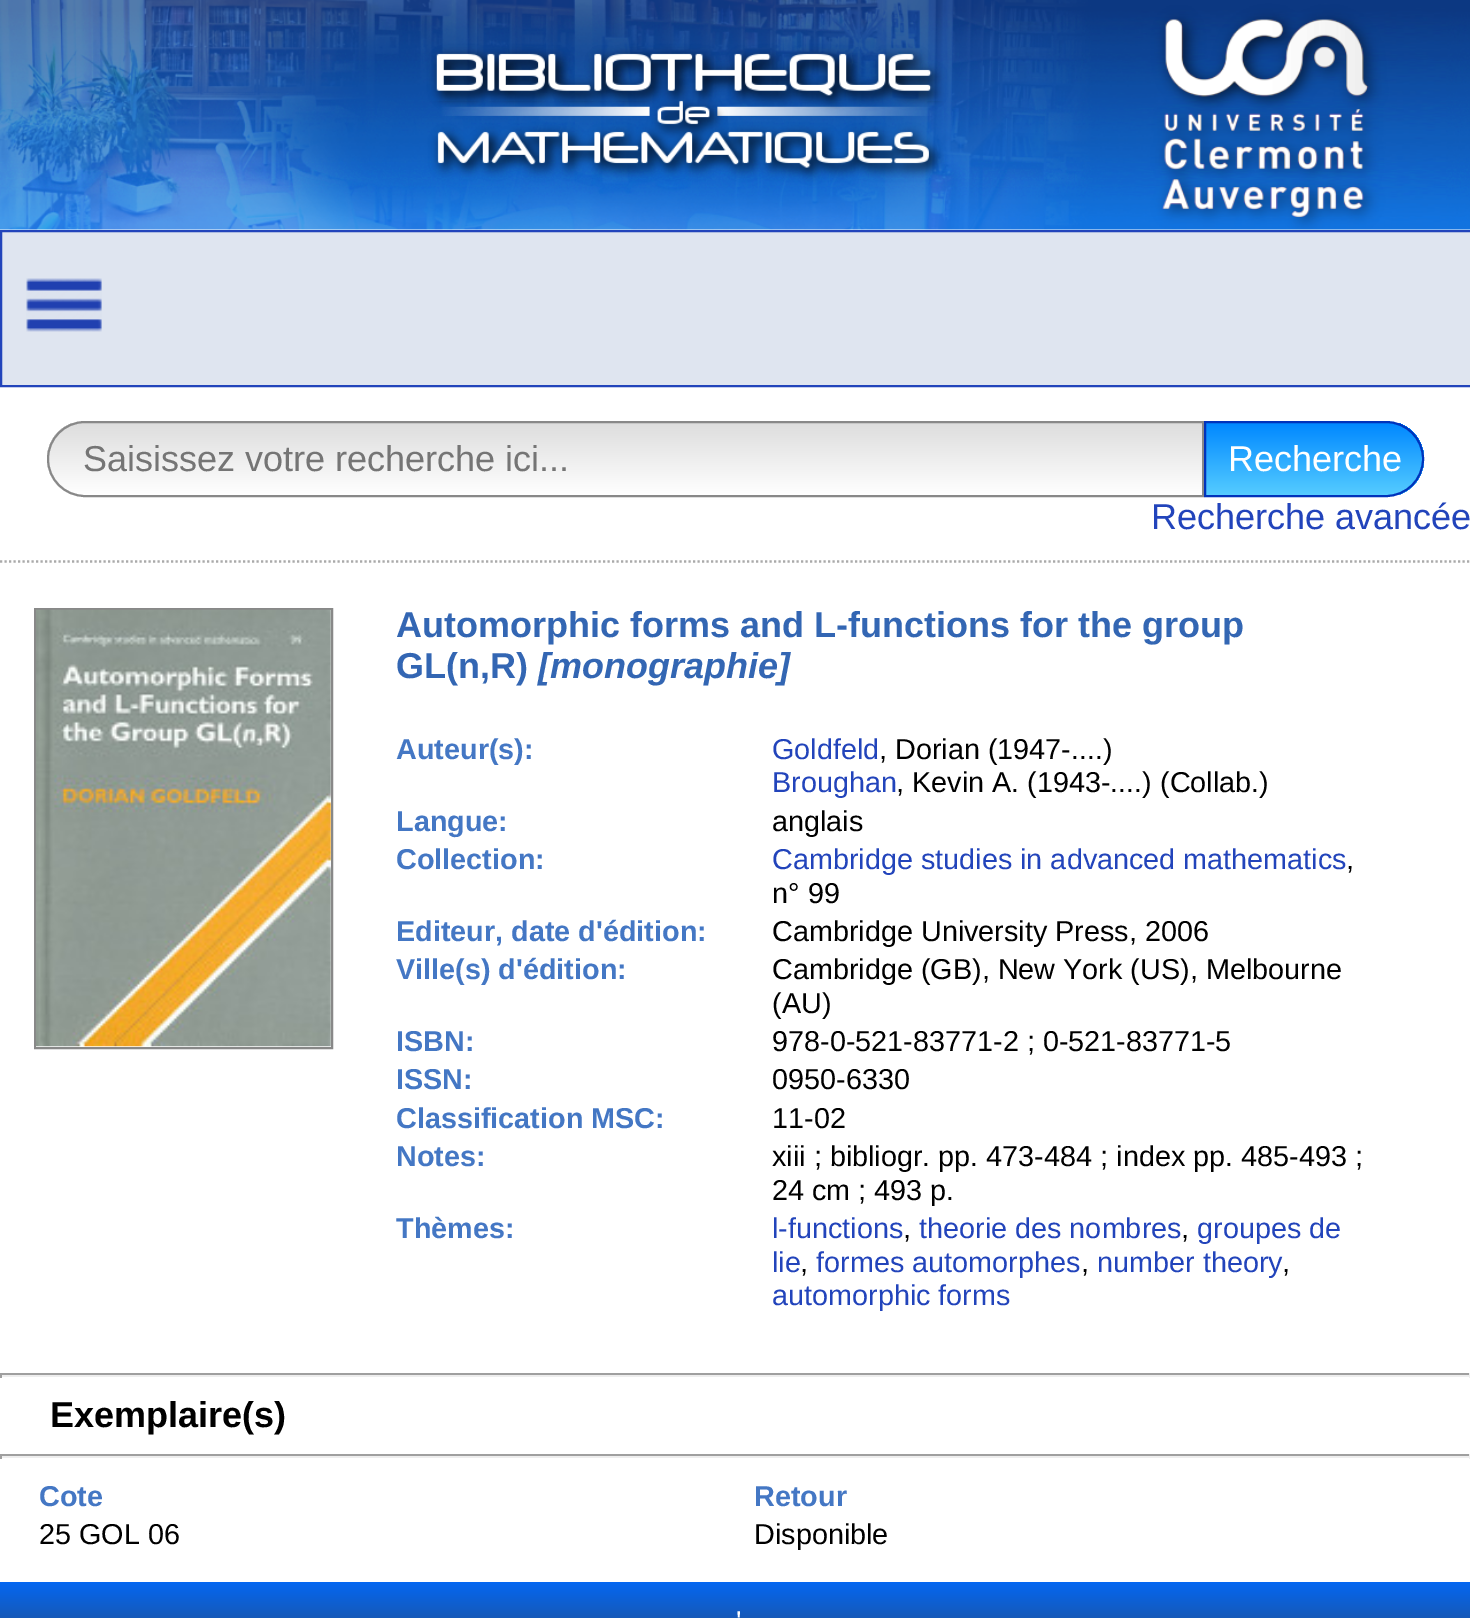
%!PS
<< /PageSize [1470 1618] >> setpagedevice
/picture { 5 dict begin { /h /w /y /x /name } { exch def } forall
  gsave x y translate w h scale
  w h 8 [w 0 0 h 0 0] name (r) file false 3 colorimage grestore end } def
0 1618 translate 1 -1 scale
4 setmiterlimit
1 setgray
0 0 1470 1618 rectfill
(img1.rgb) 0 0 1470 230 picture
0.875 0.898 0.941 setrgbcolor
newpath 1 231 moveto 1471 231 lineto 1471 386 lineto 1 386 lineto closepath gsave fill grestore
0.133 0.267 0.733 setrgbcolor
2 setlinewidth
stroke
(img2.rgb) 26 278 76 54 picture
0.667 setgray
2.2 setlinewidth
[2.25 2.25] 0 setdash
newpath 0 561.5 moveto 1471.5 561.5 lineto stroke
gsave
newpath 85 421 moveto 1204 421 lineto 1204 497 lineto 85 497 lineto 64 497 47 480 47 459 curveto 47 438 64 421 85 421 curveto closepath clip newpath
gsave newpath 47 423 moveto 1202 423 lineto 1202 495 lineto 47 495 lineto closepath clip newpath
<< /ShadingType 2 /ColorSpace /DeviceRGB /Coords [626 423 626 495] /Extend [true true] /Function << /FunctionType 2 /Domain [0 1] /C0 [0.867 0.867 0.867] /C1 [1 1 1] /N 1 >> >> shfill grestore
grestore
0.533 setgray
2 setlinewidth
[] 0 setdash
newpath 85 422 moveto 1203 422 lineto 1203 496 lineto 85 496 lineto 64.5 496 48 479.5 48 459 curveto 48 438.5 64.5 422 85 422 curveto closepath stroke
/LiberationSans-Regular [36 0 0 -36 0 0] selectfont
0.459 setgray
83 471 moveto (Saisissez votre recherche ici...) show
gsave
newpath 1204 421 moveto 1386 421 lineto 1407 421 1424 438 1424 459 curveto 1424 480 1407 497 1386 497 curveto 1204 497 lineto closepath clip newpath
gsave newpath 1206 423 moveto 1424 423 lineto 1424 495 lineto 1206 495 lineto closepath clip newpath
<< /ShadingType 2 /ColorSpace /DeviceRGB /Coords [1314 423 1314 495] /Extend [true true] /Function << /FunctionType 2 /Domain [0 1] /C0 [0 0.533 1] /C1 [0.333 0.8 1] /N 1 >> >> shfill grestore
grestore
0 0.2 0.733 setrgbcolor
newpath 1205 422 moveto 1386 422 lineto 1406.5 422 1423 438.5 1423 459 curveto 1423 479.5 1406.5 496 1386 496 curveto 1205 496 lineto closepath stroke
1 setgray
1228 471 moveto (Recherche) show
0.133 0.267 0.733 setrgbcolor
1151 529 moveto (Recherche avancée) show
0.533 setgray
35 609 297 439 rectstroke
(img3.rgb) 36 609 295 438 picture
/LiberationSans-Bold [36 0 0 -36 0 0] selectfont
0.2 0.4 0.702 setrgbcolor
396 637 moveto (Automorphic forms and L-functions for the group) show
396 678 moveto (GL\(n,R\)) show
/LiberationSans-BoldItalic [36 0 0 -36 0 0] selectfont
538 678 moveto ([monographie]) show
/LiberationSans-Bold [28.8 0 0 -28.8 0 0] selectfont
0.267 0.467 0.769 setrgbcolor
396 759 moveto (Auteur\(s\):) show
/LiberationSans-Regular [28.8 0 0 -28.8 0 0] selectfont
0.133 0.267 0.733 setrgbcolor
772 759 moveto (Goldfeld) show
0 setgray
879 759 moveto (, Dorian \(1947-....\)) show
0.133 0.267 0.733 setrgbcolor
772 792 moveto (Broughan) show
0 setgray
896 792 moveto (, Kevin A. \(1943-....\) \(Collab.\)) show
/LiberationSans-Bold [28.8 0 0 -28.8 0 0] selectfont
0.267 0.467 0.769 setrgbcolor
396 831 moveto (Langue:) show
/LiberationSans-Regular [28.8 0 0 -28.8 0 0] selectfont
0 setgray
772 831 moveto (anglais) show
/LiberationSans-Bold [28.8 0 0 -28.8 0 0] selectfont
0.267 0.467 0.769 setrgbcolor
396 869 moveto (Collection:) show
/LiberationSans-Regular [28.8 0 0 -28.8 0 0] selectfont
0.133 0.267 0.733 setrgbcolor
772 869 moveto (Cambridge studies in advanced mathematics) show
0 setgray
1346 869 moveto (,) show
772 903 moveto (n° 99) show
/LiberationSans-Bold [28.8 0 0 -28.8 0 0] selectfont
0.267 0.467 0.769 setrgbcolor
396 941 moveto (Editeur, date d'édition:) show
/LiberationSans-Regular [28.8 0 0 -28.8 0 0] selectfont
0 setgray
772 941 moveto (Cambridge University Press, 2006) show
/LiberationSans-Bold [28.8 0 0 -28.8 0 0] selectfont
0.267 0.467 0.769 setrgbcolor
396 979 moveto (Ville\(s\) d'édition:) show
/LiberationSans-Regular [28.8 0 0 -28.8 0 0] selectfont
0 setgray
772 979 moveto (Cambridge \(GB\), New York \(US\), Melbourne) show
772 1013 moveto (\(AU\)) show
/LiberationSans-Bold [28.8 0 0 -28.8 0 0] selectfont
0.267 0.467 0.769 setrgbcolor
396 1051 moveto (ISBN:) show
/LiberationSans-Regular [28.8 0 0 -28.8 0 0] selectfont
0 setgray
772 1051 moveto (978-0-521-83771-2 ; 0-521-83771-5) show
/LiberationSans-Bold [28.8 0 0 -28.8 0 0] selectfont
0.267 0.467 0.769 setrgbcolor
396 1089 moveto (ISSN:) show
/LiberationSans-Regular [28.8 0 0 -28.8 0 0] selectfont
0 setgray
772 1089 moveto (0950-6330) show
/LiberationSans-Bold [28.8 0 0 -28.8 0 0] selectfont
0.267 0.467 0.769 setrgbcolor
396 1128 moveto (Classification MSC:) show
/LiberationSans-Regular [28.8 0 0 -28.8 0 0] selectfont
0 setgray
772 1128 moveto (11-02) show
/LiberationSans-Bold [28.8 0 0 -28.8 0 0] selectfont
0.267 0.467 0.769 setrgbcolor
396 1166 moveto (Notes:) show
/LiberationSans-Regular [28.8 0 0 -28.8 0 0] selectfont
0 setgray
772 1166 moveto (xiii ; bibliogr. pp. 473-484 ; index pp. 485-493 ;) show
772 1200 moveto (24 cm ; 493 p.) show
/LiberationSans-Bold [28.8 0 0 -28.8 0 0] selectfont
0.267 0.467 0.769 setrgbcolor
396 1238 moveto (Thèmes:) show
/LiberationSans-Regular [28.8 0 0 -28.8 0 0] selectfont
0.133 0.267 0.733 setrgbcolor
772 1238 moveto (l-functions) show
0 setgray
903 1238 moveto (,) show
0.133 0.267 0.733 setrgbcolor
919 1238 moveto (theorie des nombres) show
0 setgray
1181 1238 moveto (,) show
0.133 0.267 0.733 setrgbcolor
1197 1238 moveto (groupes de) show
772 1272 moveto (lie) show
0 setgray
800 1272 moveto (,) show
0.133 0.267 0.733 setrgbcolor
816 1272 moveto (formes automorphes) show
0 setgray
1081 1272 moveto (,) show
0.133 0.267 0.733 setrgbcolor
1097 1272 moveto (number theory) show
0 setgray
1282 1272 moveto (,) show
0.133 0.267 0.733 setrgbcolor
772 1305 moveto (automorphic forms) show
0.624 setgray
0 1373 1470 2 rectfill
0.933 setgray
1469 1373 1 5 rectfill
0 1375 1470 2 rectfill
0.624 setgray
0 1373 2 5 rectfill
/LiberationSans-Bold [36 0 0 -36 0 0] selectfont
0 setgray
50 1427 moveto (Exemplaire\(s\)) show
0.624 setgray
0 1454 1470 2 rectfill
0.933 setgray
1469 1454 1 5 rectfill
0 1456 1470 2 rectfill
0.624 setgray
0 1454 2 5 rectfill
/LiberationSans-Bold [28.8 0 0 -28.8 0 0] selectfont
0.267 0.467 0.769 setrgbcolor
39 1506 moveto (Cote) show
754 1506 moveto (Retour) show
/LiberationSans-Regular [28.8 0 0 -28.8 0 0] selectfont
0 setgray
39 1544 moveto (25 GOL 06) show
754 1544 moveto (Disponible) show
gsave newpath 0 1582 moveto 1470 1582 lineto 1470 1618 lineto 0 1618 lineto closepath clip newpath
<< /ShadingType 2 /ColorSpace /DeviceRGB /Coords [736 1582 736 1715] /Extend [true true] /Function << /FunctionType 3 /Domain [0 1] /Functions [<< /FunctionType 2 /Domain [0 1] /C0 [0.016 0.404 0.949] /C1 [0.173 0.278 0.427] /N 1 >> << /FunctionType 2 /Domain [0 1] /C0 [0.173 0.278 0.427] /C1 [0.173 0.278 0.427] /N 1 >>] /Bounds [0.62] /Encode [0 1 0 1] >> >> shfill grestore
1 setgray
736 1631 moveto (') show
showpage
